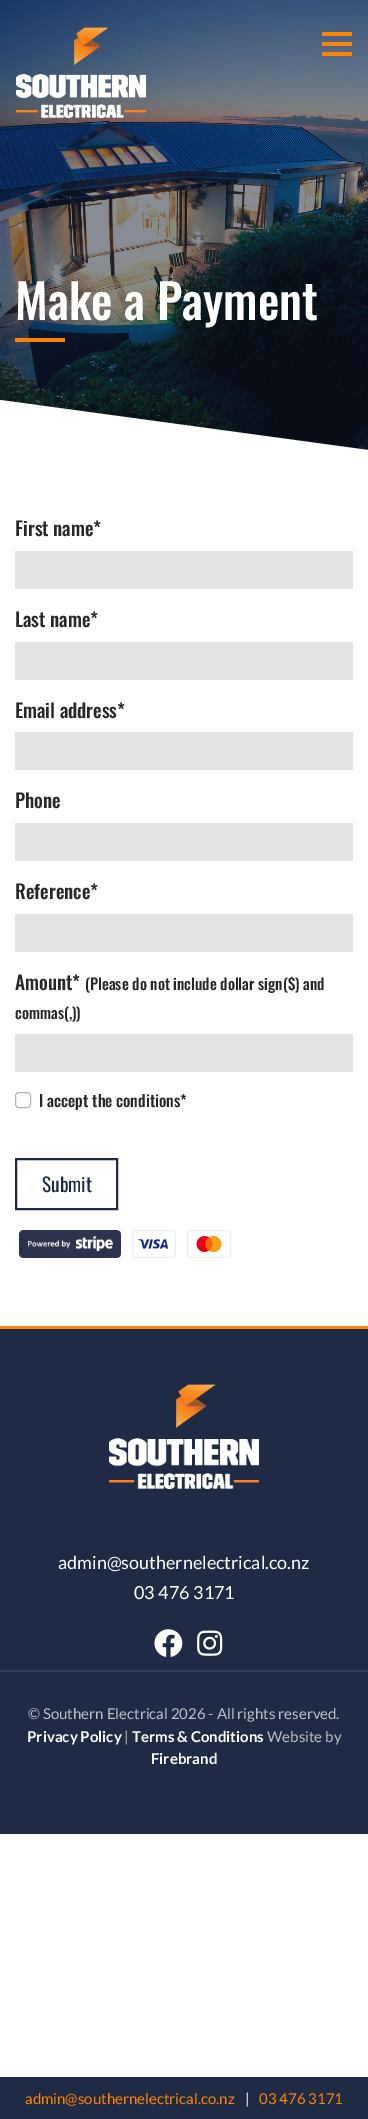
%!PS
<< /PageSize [368 2119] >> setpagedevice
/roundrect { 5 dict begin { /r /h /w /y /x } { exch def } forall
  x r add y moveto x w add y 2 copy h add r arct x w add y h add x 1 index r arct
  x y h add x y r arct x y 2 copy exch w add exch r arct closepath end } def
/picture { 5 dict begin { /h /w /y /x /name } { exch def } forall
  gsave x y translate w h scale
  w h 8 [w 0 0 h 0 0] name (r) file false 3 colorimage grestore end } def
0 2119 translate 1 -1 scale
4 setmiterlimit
1 setgray
0 0 368 2119 rectfill
(img2.rgb) 0 0 368 450 picture
(img1.rgb) 16 27 130 91 picture
1 0.51 0 setrgbcolor
322 32 30 4 rectfill
322 42 30 4 rectfill
322 52 30 4 rectfill
/Oswald-Medium [48 0 0 -48 0 0] selectfont
1 setgray
15 320 moveto (Make a Payment) show
1 0.51 0 setrgbcolor
15 338 50 4 rectfill
1 setgray
newpath 0 450 moveto 0 400 lineto 368 450 lineto closepath fill
/Oswald-Medium [19.25 0 0 -19.25 0 0] selectfont
0.161 0.149 0.149 setrgbcolor
15 536 moveto (First name*) show
0.894 setgray
15 551 338 38 rectfill
0.161 0.149 0.149 setrgbcolor
15 627 moveto (Last name*) show
0.894 setgray
15 642 338 38 rectfill
0.161 0.149 0.149 setrgbcolor
15 718 moveto (Email address*) show
0.894 setgray
15 732 338 38 rectfill
0.161 0.149 0.149 setrgbcolor
15 808 moveto (Phone) show
0.894 setgray
15 823 338 38 rectfill
0.161 0.149 0.149 setrgbcolor
15 899 moveto (Reference*) show
0.894 setgray
15 914 338 38 rectfill
0.161 0.149 0.149 setrgbcolor
15 990 moveto (Amount*) show
/Oswald-Medium [15.4 0 0 -15.4 0 0] selectfont
85 990 moveto (\(Please do not include dollar sign\($\) and) show
15 1019 moveto (commas\(,\)\)) show
0.894 setgray
15 1034 338 38 rectfill
0.678 0.71 0.741 setrgbcolor
15.5 1092.5 15 15 3.5 roundrect stroke
/Oswald-Medium [16 0 0 -16 0 0] selectfont
0.161 0.149 0.149 setrgbcolor
39 1107 moveto (I accept the conditions*) show
0.122 0.165 0.267 setrgbcolor
2 setlinewidth
16 1159 101 50 rectstroke
/Oswald-Regular [19.25 0 0 -19.25 0 0] selectfont
42 1192 moveto (Submit) show
(img3.rgb) 19 1230 102 28 picture
(img4.rgb) 132 1230 44 28 picture
(img5.rgb) 187 1230 44 28 picture
0 1329 368 505 rectfill
1 0.51 0 setrgbcolor
0 1326 368 3 rectfill
(img6.rgb) 109 1384 150 105 picture
/Lato-Regular [18 0 0 -18 0 0] selectfont
1 setgray
58 1569 moveto (admin@southernelectrical.co.nz) show
134 1599 moveto (03 476 3171) show
(img7.rgb) 154 1629 29 28 picture
(img8.rgb) 197 1630 26 26 picture
0.208 0.247 0.341 setrgbcolor
0 1670 368 2 rectfill
/Lato-Regular [15 0 0 -15 0 0] selectfont
0.737 0.749 0.78 setrgbcolor
28 1719 moveto (© Southern Electrical 2026 - All rights reserved.) show
/Lato-Bold [15 0 0 -15 0 0] selectfont
1 setgray
27 1742 moveto (Privacy Policy) show
/Lato-Regular [15 0 0 -15 0 0] selectfont
0.737 0.749 0.78 setrgbcolor
124 1742 moveto (|) show
/Lato-Bold [15 0 0 -15 0 0] selectfont
1 setgray
132 1742 moveto (Terms & Conditions) show
/Lato-Regular [15 0 0 -15 0 0] selectfont
0.737 0.749 0.78 setrgbcolor
267 1742 moveto (Website by) show
/Lato-Bold [15 0 0 -15 0 0] selectfont
1 setgray
151 1764 moveto (Firebrand) show
0.122 0.165 0.267 setrgbcolor
0 2077 368 42 rectfill
/Lato-Regular [15 0 0 -15 0 0] selectfont
1 0.51 0 setrgbcolor
25 2104 moveto (admin@southernelectrical.co.nz) show
1 setgray
245 2104 moveto (|) show
1 0.51 0 setrgbcolor
259 2104 moveto (03 476 3171) show
showpage
